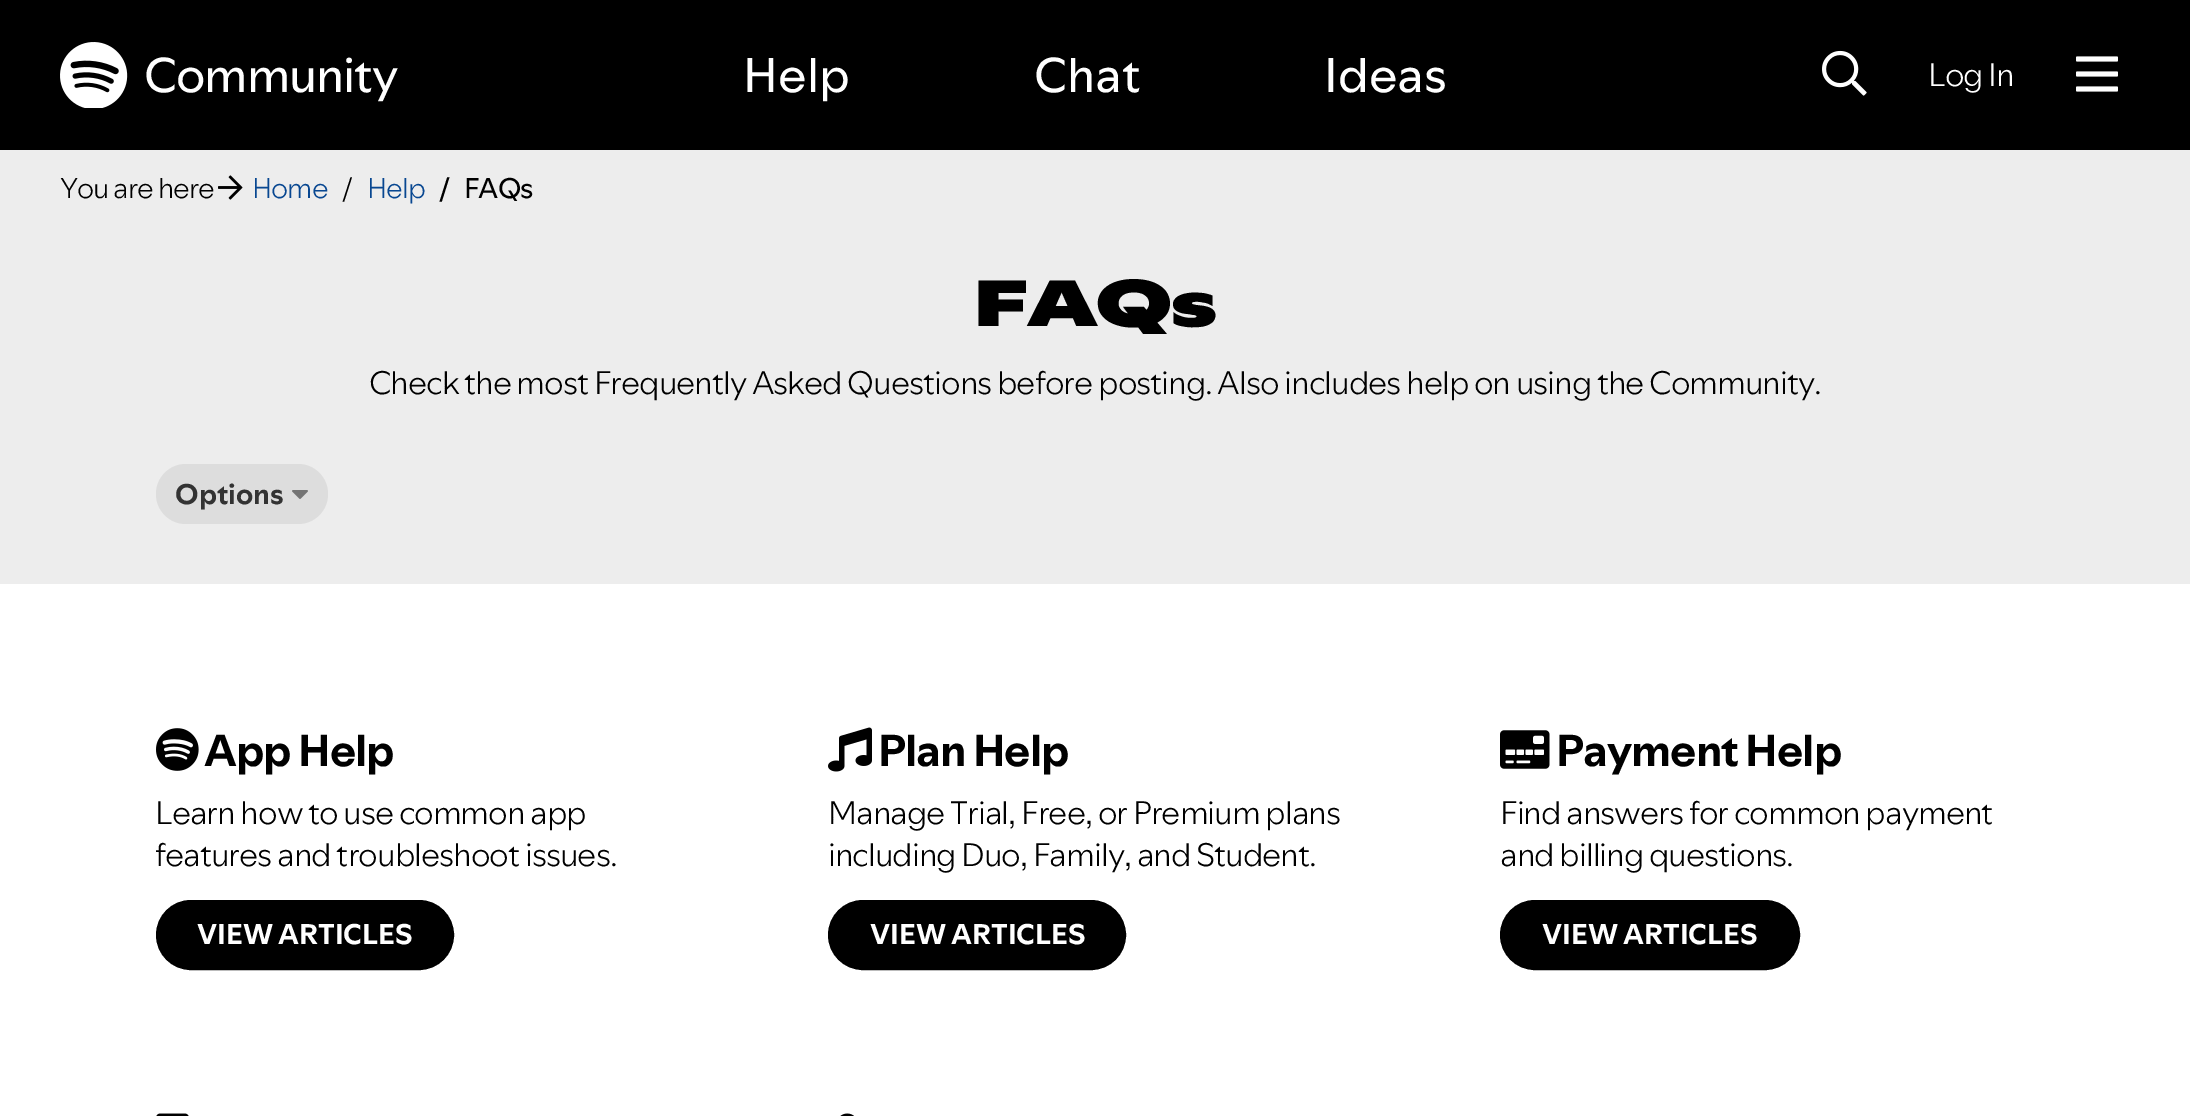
%!PS
<< /PageSize [2190 1116] >> setpagedevice
/roundrect { 5 dict begin { /r /h /w /y /x } { exch def } forall
  x r add y moveto x w add y 2 copy h add r arct x w add y h add x 1 index r arct
  x y h add x y r arct x y 2 copy exch w add exch r arct closepath end } def
/picture { 5 dict begin { /h /w /y /x /name } { exch def } forall
  gsave x y translate w h scale
  w h 8 [w 0 0 h 0 0] name (r) file false 3 colorimage grestore end } def
0 1116 translate 1 -1 scale
4 setmiterlimit
0.929 setgray
0 0 2190 1116 rectfill
0 setgray
0 0 2190 150 rectfill
(img1.rgb) 60 42 68 66 picture
/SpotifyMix-Regular [48 0 0 -48 0 0] selectfont
1 setgray
144 92 moveto -1 0 (Community) ashow
743 92 moveto (Help) show
1034 92 moveto (Chat) show
1324 92 moveto (Ideas) show
(img2.rgb) 1822 50 45 46 picture
/SpotifyMix-Light [32 0 0 -32 0 0] selectfont
1928 86 moveto -1 0 (Log In) ashow
(img3.rgb) 2076 56 42 36 picture
/SpotifyMix-Light [28 0 0 -28 0 0] selectfont
0 setgray
60 198 moveto -1 0 (You are here) ashow
(img4.rgb) 218 175 25 25 picture
0.031 0.278 0.569 setrgbcolor
252 198 moveto -1 0 (Home) ashow
0 setgray
342 198 moveto -1 0 (/) ashow
0.031 0.278 0.569 setrgbcolor
367 198 moveto -1 0 (Help) ashow
/SpotifyMix-Regular [28 0 0 -28 0 0] selectfont
0 setgray
439 198 moveto -1 0 (/) ashow
464 198 moveto -1 0 (FAQs) ashow
/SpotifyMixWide-Black [64 0 0 -64 0 0] selectfont
974 326 moveto -1 0 (FAQs) ashow
/SpotifyMix-Light [32 0 0 -32 0 0] selectfont
369 394 moveto -1 0 (Check the most Frequently Asked Questions before posting. Also includes help on using the Community.) ashow
0.867 setgray
156 464 172 60 30 roundrect fill
/SpotifyMix-Bold [28 0 0 -28 0 0] selectfont
0.2 setgray
175 504 moveto (Options) show
(img5.rgb) 292 490 16 9 picture
1 setgray
0 584 2190 532 rectfill
(img6.rgb) 156 728 43 43 picture
/SpotifyMix-Bold [44 0 0 -44 0 0] selectfont
0 setgray
204 766 moveto -1 0 (App Help) ashow
/SpotifyMix-Light [32 0 0 -32 0 0] selectfont
155 824 moveto -1 0 (Learn how to use common app) ashow
155 866 moveto -1 0 (features and troubleshoot issues.) ashow
157 901 296 68 34 roundrect gsave fill grestore
2 setlinewidth
stroke
/SpotifyMix-Bold [28 0 0 -28 0 0] selectfont
1 setgray
197 944 moveto (VIEW ARTICLES) show
(img7.rgb) 828 727 44 45 picture
/SpotifyMix-Bold [44 0 0 -44 0 0] selectfont
0 setgray
878 766 moveto -1 0 (Plan Help) ashow
/SpotifyMix-Light [32 0 0 -32 0 0] selectfont
828 824 moveto -1 0 (Manage Trial, Free, or Premium plans) ashow
828 866 moveto -1 0 (including Duo, Family, and Student.) ashow
829 901 296 68 34 roundrect gsave fill grestore
stroke
/SpotifyMix-Bold [28 0 0 -28 0 0] selectfont
1 setgray
870 944 moveto (VIEW ARTICLES) show
(img8.rgb) 1500 730 50 39 picture
/SpotifyMix-Bold [44 0 0 -44 0 0] selectfont
0 setgray
1556 766 moveto -1 0 (Payment Help) ashow
/SpotifyMix-Light [32 0 0 -32 0 0] selectfont
1500 824 moveto -1 0 (Find answers for common payment) ashow
1500 866 moveto -1 0 (and billing questions.) ashow
1501 901 298 68 34 roundrect gsave fill grestore
stroke
/SpotifyMix-Bold [28 0 0 -28 0 0] selectfont
1 setgray
1542 944 moveto (VIEW ARTICLES) show
(img9.rgb) 156 1113 33 3 picture
(img10.rgb) 840 1113 14 3 picture
showpage
